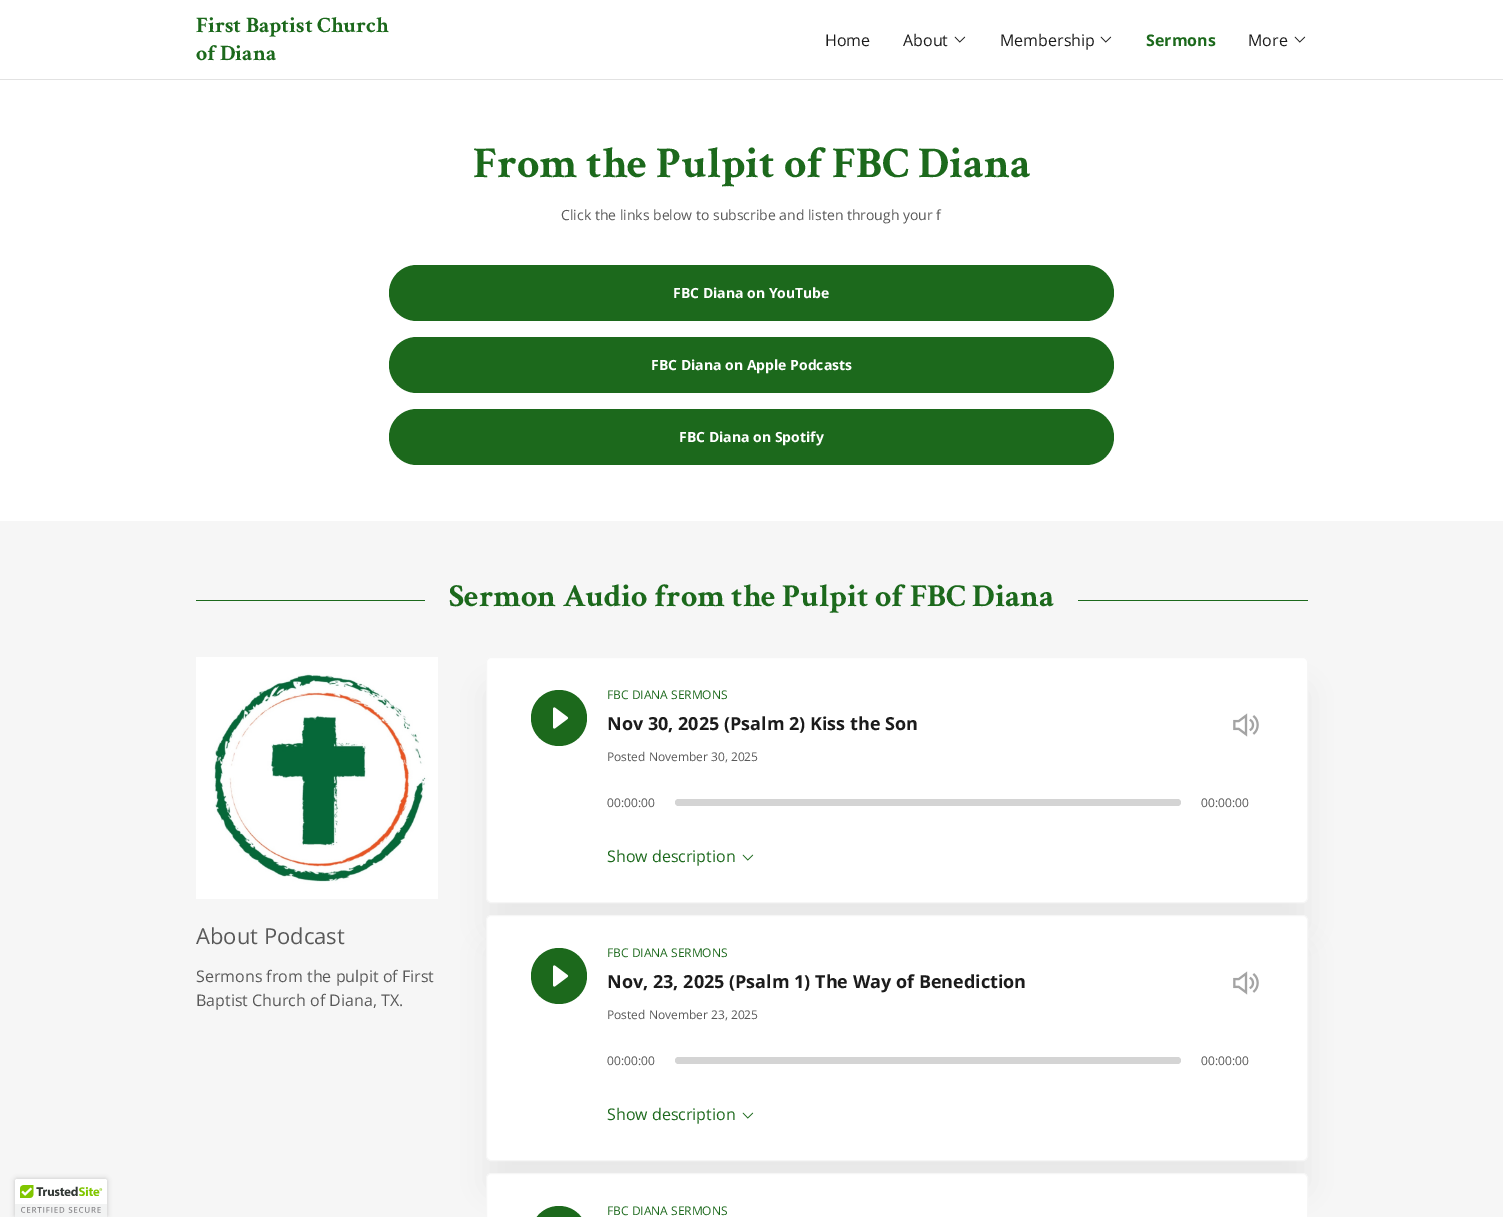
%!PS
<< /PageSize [1503 1217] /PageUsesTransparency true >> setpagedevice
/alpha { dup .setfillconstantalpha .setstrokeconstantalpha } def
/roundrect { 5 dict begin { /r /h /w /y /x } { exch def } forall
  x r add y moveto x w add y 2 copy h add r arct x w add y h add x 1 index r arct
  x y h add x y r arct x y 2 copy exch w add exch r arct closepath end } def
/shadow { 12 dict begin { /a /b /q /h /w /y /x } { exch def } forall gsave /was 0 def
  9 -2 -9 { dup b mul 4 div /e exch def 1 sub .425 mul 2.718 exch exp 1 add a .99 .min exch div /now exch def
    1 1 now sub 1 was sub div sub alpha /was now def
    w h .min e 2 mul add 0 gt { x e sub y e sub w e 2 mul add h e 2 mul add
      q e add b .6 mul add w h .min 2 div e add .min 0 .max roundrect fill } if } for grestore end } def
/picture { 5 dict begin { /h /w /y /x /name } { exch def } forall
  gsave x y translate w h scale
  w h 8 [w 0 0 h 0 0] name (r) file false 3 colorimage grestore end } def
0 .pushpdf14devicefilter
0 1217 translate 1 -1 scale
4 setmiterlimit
1 setgray
0 0 1503 1217 rectfill
0.965 setgray
0 521 1503 696 rectfill
0 setgray
15 1179 92 38 2 2.5 0.2 shadow
1 setgray
newpath 17 1179 moveto 105 1179 lineto 106 1179 107 1180 107 1181 curveto 107 1217 lineto 15 1217 lineto 15 1181 lineto 15 1180 16 1179 17 1179 curveto closepath fill
(img1.rgb) 15 1185 92 32 picture
/CrimsonText-Bold [22 0 0 -22 0 0] selectfont
0.11 0.412 0.11 setrgbcolor
196 32 moveto (First Baptist Church) show
196 60 moveto (of Diana) show
/OpenSans-Regular [16 0 0 -16 0 0] selectfont
0.106 setgray
825 46 moveto (Home) show
903 46 moveto (About) show
(img2.rgb) 954 36 12 7 picture
1000 46 moveto (Membership) show
(img2.rgb) 1100 36 12 7 picture
/OpenSans-Bold [16 0 0 -16 0 0] selectfont
0.11 0.412 0.11 setrgbcolor
1146 46 moveto (Sermons) show
/OpenSans-Regular [16 0 0 -16 0 0] selectfont
0.106 setgray
1248 46 moveto (More) show
(img2.rgb) 1294 36 12 7 picture
0.886 setgray
0 79 1503 1 rectfill
/CrimsonText-Bold [44 0 0 -44 0 0] selectfont
0.11 0.412 0.11 setrgbcolor
473 177 moveto (From the Pulpit of FBC Diana) show
/OpenSans-Regular [14 0 0 -14 0 0] selectfont
0.349 setgray
561 220 moveto (Click the links below to subscribe and listen through your f) show
0.11 0.412 0.11 setrgbcolor
389 265 725 56 28 roundrect fill
/OpenSans-Bold [14 0 0 -14 0 0] selectfont
1 setgray
673 298 moveto (FBC Diana on YouTube) show
0.11 0.412 0.11 setrgbcolor
389 337 725 56 28 roundrect fill
1 setgray
651 370 moveto (FBC Diana on Apple Podcasts) show
0.11 0.412 0.11 setrgbcolor
389 409 725 56 28 roundrect fill
1 setgray
679 442 moveto (FBC Diana on Spotify) show
0.11 0.412 0.11 setrgbcolor
196 600 229 1 rectfill
/CrimsonText-Bold [32 0 0 -32 0 0] selectfont
449 606 moveto (Sermon Audio from the Pulpit of FBC Diana) show
1078 600 230 1 rectfill
(img3.rgb) 196 657 242 242 picture
/OpenSans-Regular [22 0 0 -22 0 0] selectfont
0.349 setgray
196 944 moveto (About Podcast) show
/OpenSans-Regular [16 0 0 -16 0 0] selectfont
196 982 moveto (Sermons from the pulpit of First) show
196 1006 moveto (Baptist Church of Diana, TX.) show
0 setgray
486 687 822 246 5 15 0.05 shadow
1 setgray
486.5 657.5 821 245 4.5 roundrect gsave fill grestore
0.965 setgray
stroke
0.11 0.412 0.11 setrgbcolor
newpath 559 718 28 0 360 arc closepath fill
(img4.rgb) 553 707 16 22 picture
/OpenSans-Regular [12 0 0 -12 0 0] selectfont
607 699 moveto (FBC DIANA SERMONS) show
/OpenSans-Bold [18 0 0 -18 0 0] selectfont
0.106 setgray
607 730 moveto (Nov 30, 2025 \(Psalm 2\) Kiss the Son) show
(img5.rgb) 1233 713 26 24 picture
/OpenSans-Regular [12 0 0 -12 0 0] selectfont
0.349 setgray
607 761 moveto (Posted November 30, 2025) show
607 807 moveto (00:00:00) show
0.831 setgray
675 799 506 7 3.5 roundrect fill
0.349 setgray
1201 807 moveto (00:00:00) show
/OpenSans-Regular [16 0 0 -16 0 0] selectfont
0.11 0.412 0.11 setrgbcolor
607 862 moveto (Show description) show
(img6.rgb) 742 854 12 7 picture
0 setgray
486 945 822 246 5 15 0.05 shadow
1 setgray
486.5 915.5 821 245 4.5 roundrect gsave fill grestore
0.965 setgray
stroke
0.11 0.412 0.11 setrgbcolor
newpath 559 976 28 0 360 arc closepath fill
(img4.rgb) 553 965 16 22 picture
/OpenSans-Regular [12 0 0 -12 0 0] selectfont
607 957 moveto (FBC DIANA SERMONS) show
/OpenSans-Bold [18 0 0 -18 0 0] selectfont
0.106 setgray
607 988 moveto (Nov, 23, 2025 \(Psalm 1\) The Way of Benediction) show
(img5.rgb) 1233 971 26 24 picture
/OpenSans-Regular [12 0 0 -12 0 0] selectfont
0.349 setgray
607 1019 moveto (Posted November 23, 2025) show
607 1065 moveto (00:00:00) show
0.831 setgray
675 1057 506 7 3.5 roundrect fill
0.349 setgray
1201 1065 moveto (00:00:00) show
/OpenSans-Regular [16 0 0 -16 0 0] selectfont
0.11 0.412 0.11 setrgbcolor
607 1120 moveto (Show description) show
(img6.rgb) 742 1112 12 7 picture
1 setgray
486.5 1173.5 821 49 4.5 roundrect gsave fill grestore
0.965 setgray
stroke
0.11 0.412 0.11 setrgbcolor
531 1206 56 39 28 roundrect fill
/OpenSans-Regular [12 0 0 -12 0 0] selectfont
607 1215 moveto (FBC DIANA SERMONS) show
.poppdf14devicefilter showpage
